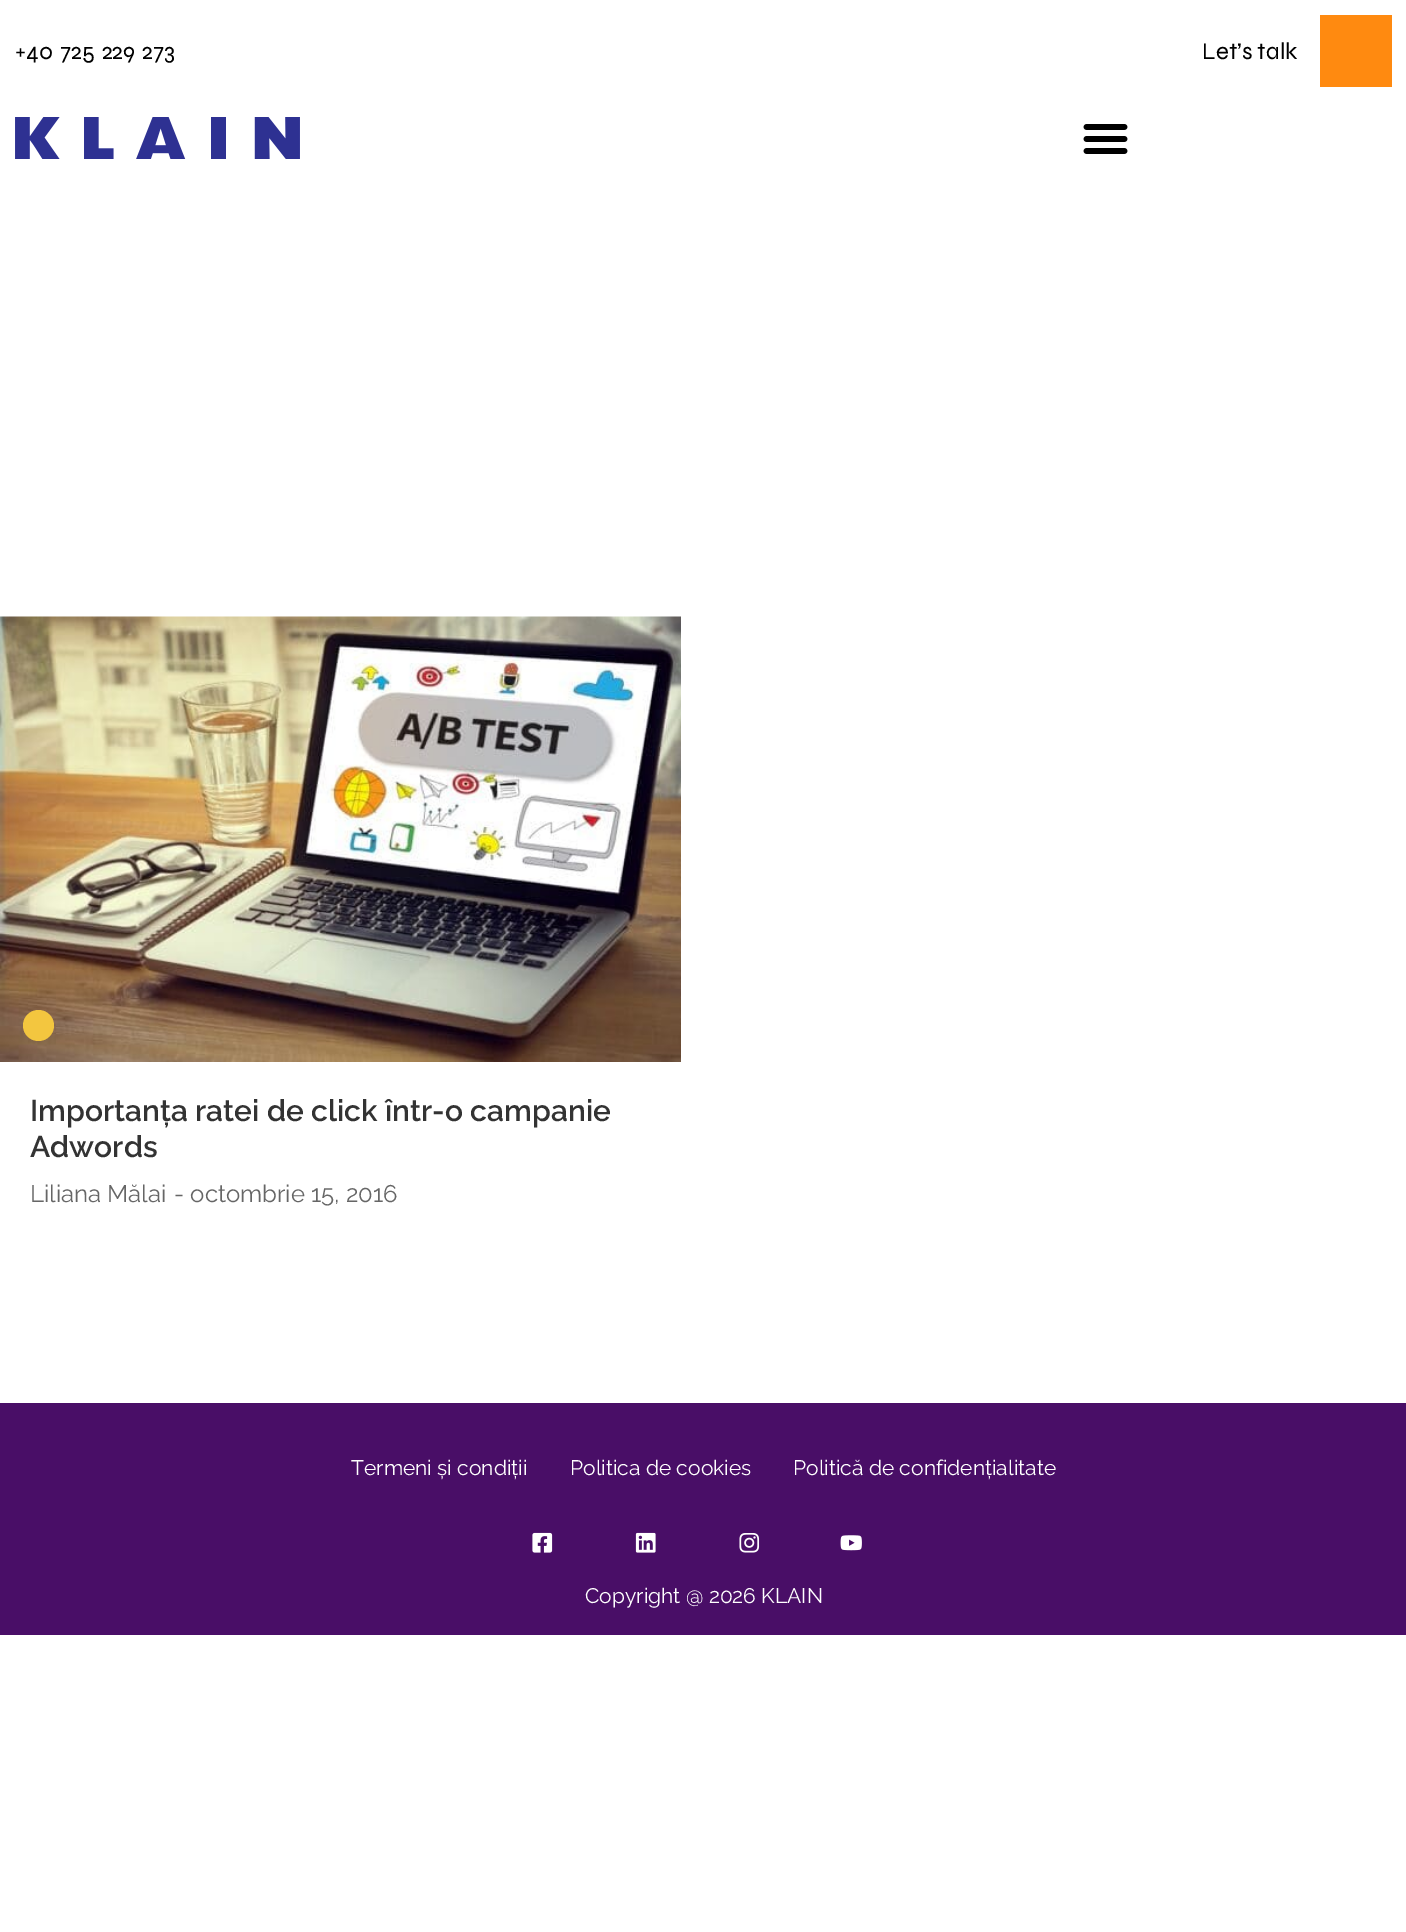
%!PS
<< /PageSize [1406 1932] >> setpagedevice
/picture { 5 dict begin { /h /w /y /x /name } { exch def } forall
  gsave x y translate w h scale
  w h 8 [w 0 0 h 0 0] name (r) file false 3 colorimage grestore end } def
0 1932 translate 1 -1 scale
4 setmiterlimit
1 setgray
0 0 1406 1932 rectfill
/Syne-Regular [24 0 0 -24 0 0] selectfont
0 setgray
15 59 moveto 2 0 32 (+40 725 229 273) widthshow
1202 59 moveto (Let’s talk) show
1 0.541 0.063 setrgbcolor
1320 15 72 72 rectfill
(img1.rgb) 15 117 285 42 picture
(img2.rgb) 1083 124 45 30 picture
(img3.rgb) 0 616 681 446 picture
0.953 0.776 0.247 setrgbcolor
newpath 38.5 1025.5 15.5 0 360 arc closepath fill
/Raleway-SemiBold [30 0 0 -30 0 0] selectfont
0.2 setgray
30 1121 moveto (Importanța ratei de click într-o campanie) show
30 1157 moveto (Adwords) show
/Raleway-Regular [24 0 0 -24 0 0] selectfont
0.4 setgray
30 1202 moveto (Liliana Mălai) show
174 1202 moveto (- octombrie 15, 2016) show
0.286 0.055 0.404 setrgbcolor
0 1403 1406 232 rectfill
/Raleway-Regular [21 0 0 -21 0 0] selectfont
1 setgray
351 1475 moveto (Termeni și condiții) show
570 1475 moveto (Politica de cookies) show
793 1475 moveto (Politică de confidențialitate) show
(img4.rgb) 532 1532 21 21 picture
(img5.rgb) 635 1532 21 21 picture
(img6.rgb) 739 1533 21 20 picture
(img7.rgb) 840 1535 22 16 picture
585 1603 moveto (Copyright @ 2026 KLAIN) show
showpage
